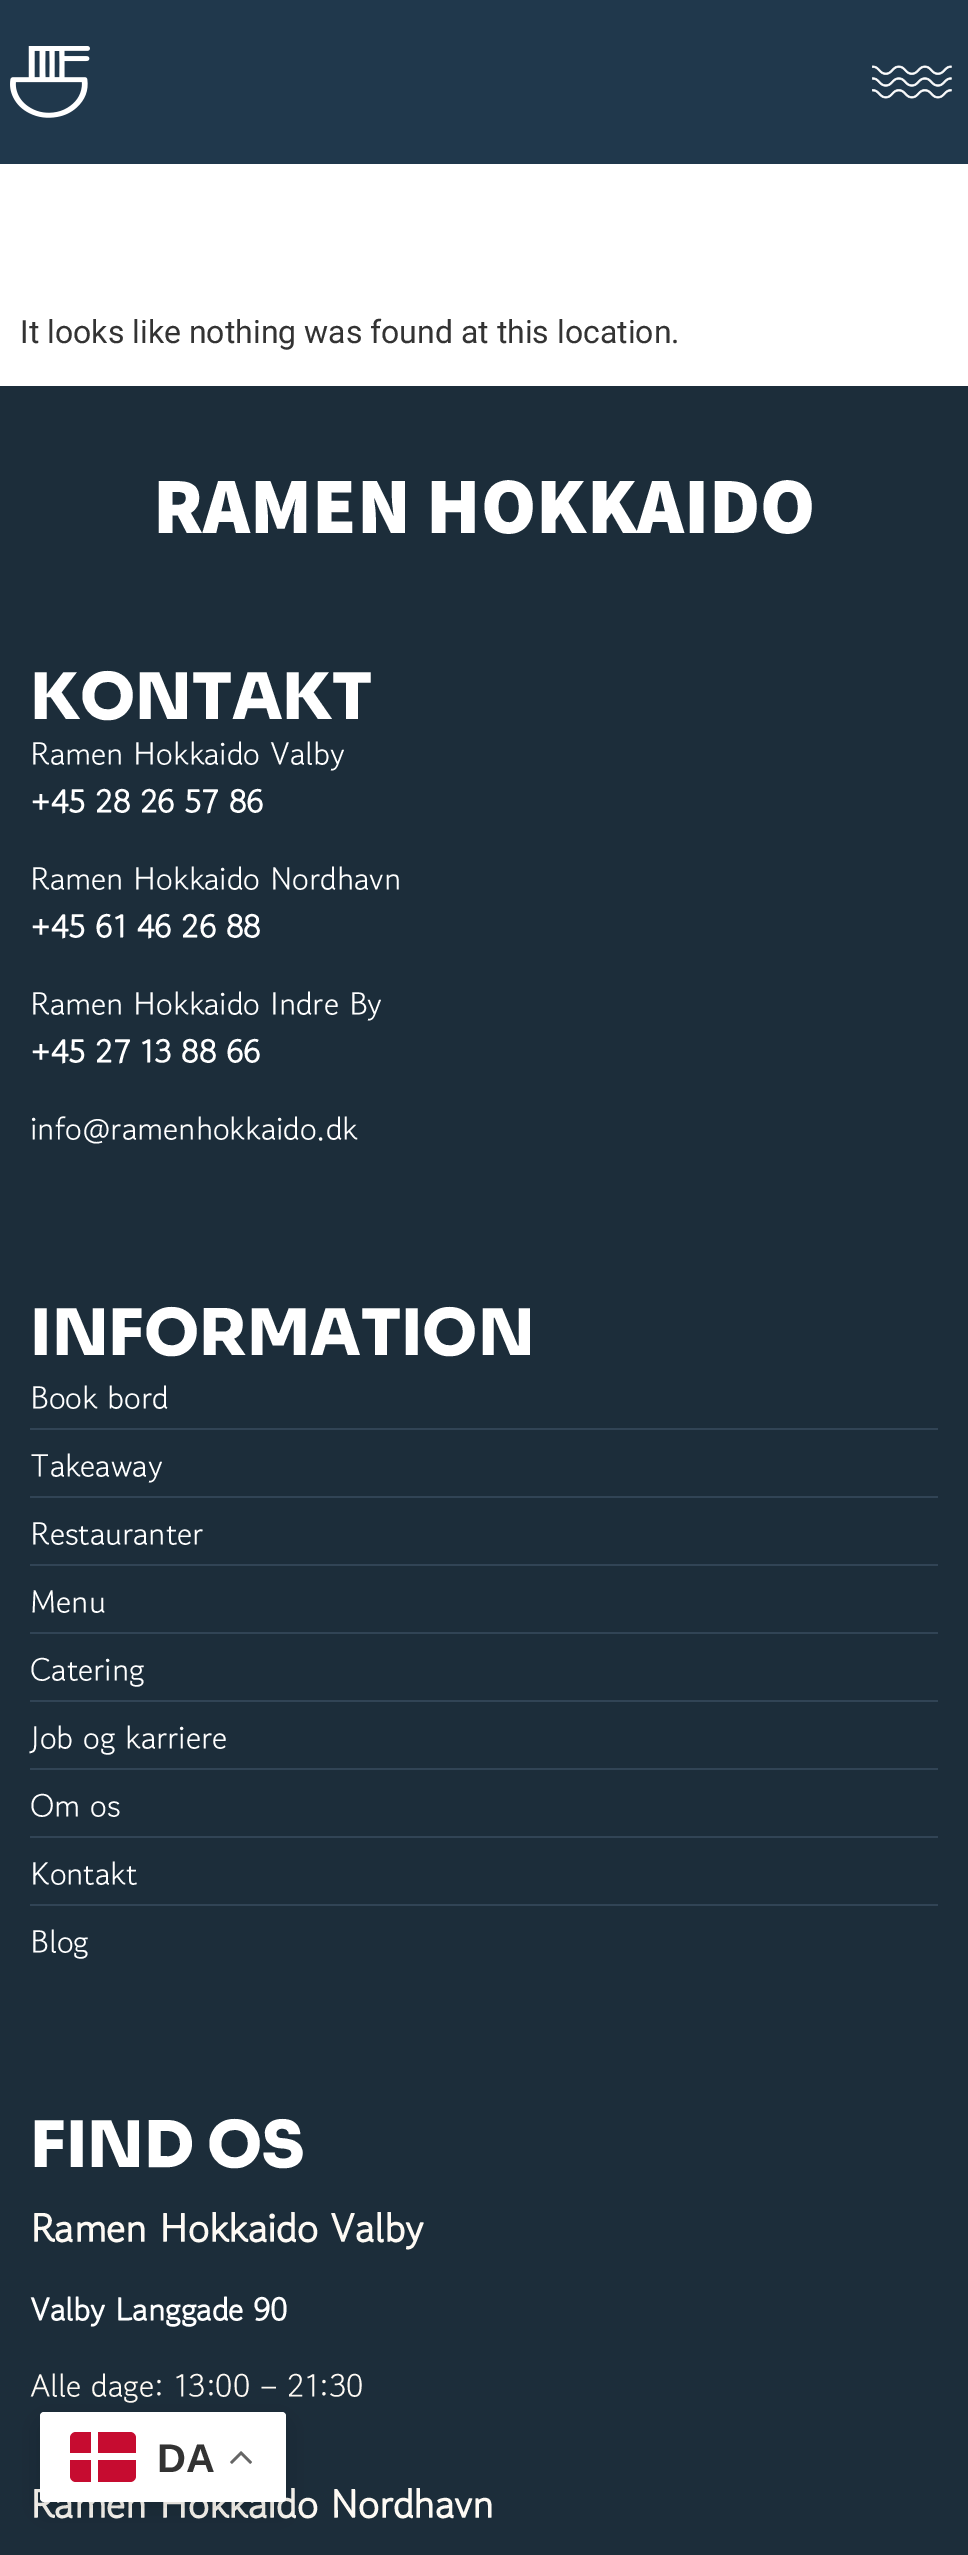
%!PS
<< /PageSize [968 2555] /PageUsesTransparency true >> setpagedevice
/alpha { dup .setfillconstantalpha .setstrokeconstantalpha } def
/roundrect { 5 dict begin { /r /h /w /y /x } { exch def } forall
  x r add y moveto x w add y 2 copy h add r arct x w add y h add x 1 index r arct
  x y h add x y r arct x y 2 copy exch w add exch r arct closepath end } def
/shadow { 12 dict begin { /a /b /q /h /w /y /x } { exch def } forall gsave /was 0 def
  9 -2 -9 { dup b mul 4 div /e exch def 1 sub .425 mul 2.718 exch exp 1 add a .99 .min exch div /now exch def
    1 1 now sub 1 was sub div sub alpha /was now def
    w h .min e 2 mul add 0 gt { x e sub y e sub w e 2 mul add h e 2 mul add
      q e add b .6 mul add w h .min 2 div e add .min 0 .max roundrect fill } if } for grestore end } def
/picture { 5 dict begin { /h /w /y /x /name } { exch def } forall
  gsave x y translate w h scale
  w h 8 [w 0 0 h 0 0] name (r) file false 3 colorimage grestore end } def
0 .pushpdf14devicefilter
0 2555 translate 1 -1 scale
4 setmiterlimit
1 setgray
0 0 968 2555 rectfill
0.125 0.22 0.298 setrgbcolor
0 0 968 164 rectfill
(img1.rgb) 10 46 80 72 picture
(img2.rgb) 872 65 80 34 picture
/Roboto-Regular [32 0 0 -32 0 0] selectfont
0.2 setgray
20 343 moveto (It looks like nothing was found at this location.) show
0.11 0.176 0.227 setrgbcolor
0 386 968 2169 rectfill
/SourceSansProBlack-Black [80 0 0 -80 0 0] selectfont
1 setgray
153 533 moveto (RAMEN HOKKAIDO) show
/Sora-ExtraBold [64 0 0 -64 0 0] selectfont
30 719 moveto (KONTAKT) show
/GowunDodum-Regular [32 0 0 -32 0 0] selectfont
30 767 moveto (Ramen Hokkaido Valby) show
/GowunDodum-Bold [32 0 0 -32 0 0] selectfont
30 815 moveto (+45 28 26 57 86) show
/GowunDodum-Regular [32 0 0 -32 0 0] selectfont
30 892 moveto (Ramen Hokkaido Nordhavn) show
/GowunDodum-Bold [32 0 0 -32 0 0] selectfont
30 940 moveto (+45 61 46 26 88) show
/GowunDodum-Regular [32 0 0 -32 0 0] selectfont
30 1017 moveto (Ramen Hokkaido Indre By) show
/GowunDodum-Bold [32 0 0 -32 0 0] selectfont
30 1065 moveto (+45 27 13 88 66) show
/GowunDodum-Regular [32 0 0 -32 0 0] selectfont
30 1142 moveto (info@ramenhokkaido.dk) show
/Sora-ExtraBold [64 0 0 -64 0 0] selectfont
30 1355 moveto (INFORMATION) show
/GowunDodum-Regular [32 0 0 -32 0 0] selectfont
30 1411 moveto (Book bord) show
0.192 0.267 0.333 setrgbcolor
30 1428 908 2 rectfill
1 setgray
30 1479 moveto (Takeaway) show
0.192 0.267 0.333 setrgbcolor
30 1496 908 2 rectfill
1 setgray
30 1547 moveto (Restauranter) show
0.192 0.267 0.333 setrgbcolor
30 1564 908 2 rectfill
1 setgray
30 1615 moveto (Menu) show
0.192 0.267 0.333 setrgbcolor
30 1632 908 2 rectfill
1 setgray
30 1683 moveto (Catering) show
0.192 0.267 0.333 setrgbcolor
30 1700 908 2 rectfill
1 setgray
30 1751 moveto (Job og karriere) show
0.192 0.267 0.333 setrgbcolor
30 1768 908 2 rectfill
1 setgray
30 1819 moveto (Om os) show
0.192 0.267 0.333 setrgbcolor
30 1836 908 2 rectfill
1 setgray
30 1887 moveto (Kontakt) show
0.192 0.267 0.333 setrgbcolor
30 1904 908 2 rectfill
1 setgray
30 1955 moveto (Blog) show
/Sora-ExtraBold [64 0 0 -64 0 0] selectfont
30 2167 moveto (FIND OS) show
/GowunDodum-Bold [40 0 0 -40 0 0] selectfont
0.996 0.98 0.957 setrgbcolor
30 2245 moveto (Ramen Hokkaido Valby) show
/GowunDodum-Bold [32 0 0 -32 0 0] selectfont
1 setgray
30 2323 moveto (Valby Langgade 90) show
/GowunDodum-Regular [32 0 0 -32 0 0] selectfont
0.996 0.98 0.957 setrgbcolor
30 2399 moveto (Alle dage: 13:00 – 21:30) show
/GowunDodum-Bold [40 0 0 -40 0 0] selectfont
30 2521 moveto (Ramen Hokkaido Nordhavn) show
0 setgray
40 2422 246 90 4 15 0.15 shadow
1 setgray
40 2412 246 90 4 roundrect fill
0.776 0.047 0.188 setrgbcolor
70 2432 66 50 6 roundrect fill
1 setgray
91 2432 7 50 rectfill
70 2453 66 7 rectfill
/LiberationSans-Bold [40 0 0 -40 0 0] selectfont
0.2 setgray
157 2472 moveto (DA) show
(img3.rgb) 230 2451 22 13 picture
.poppdf14devicefilter showpage
